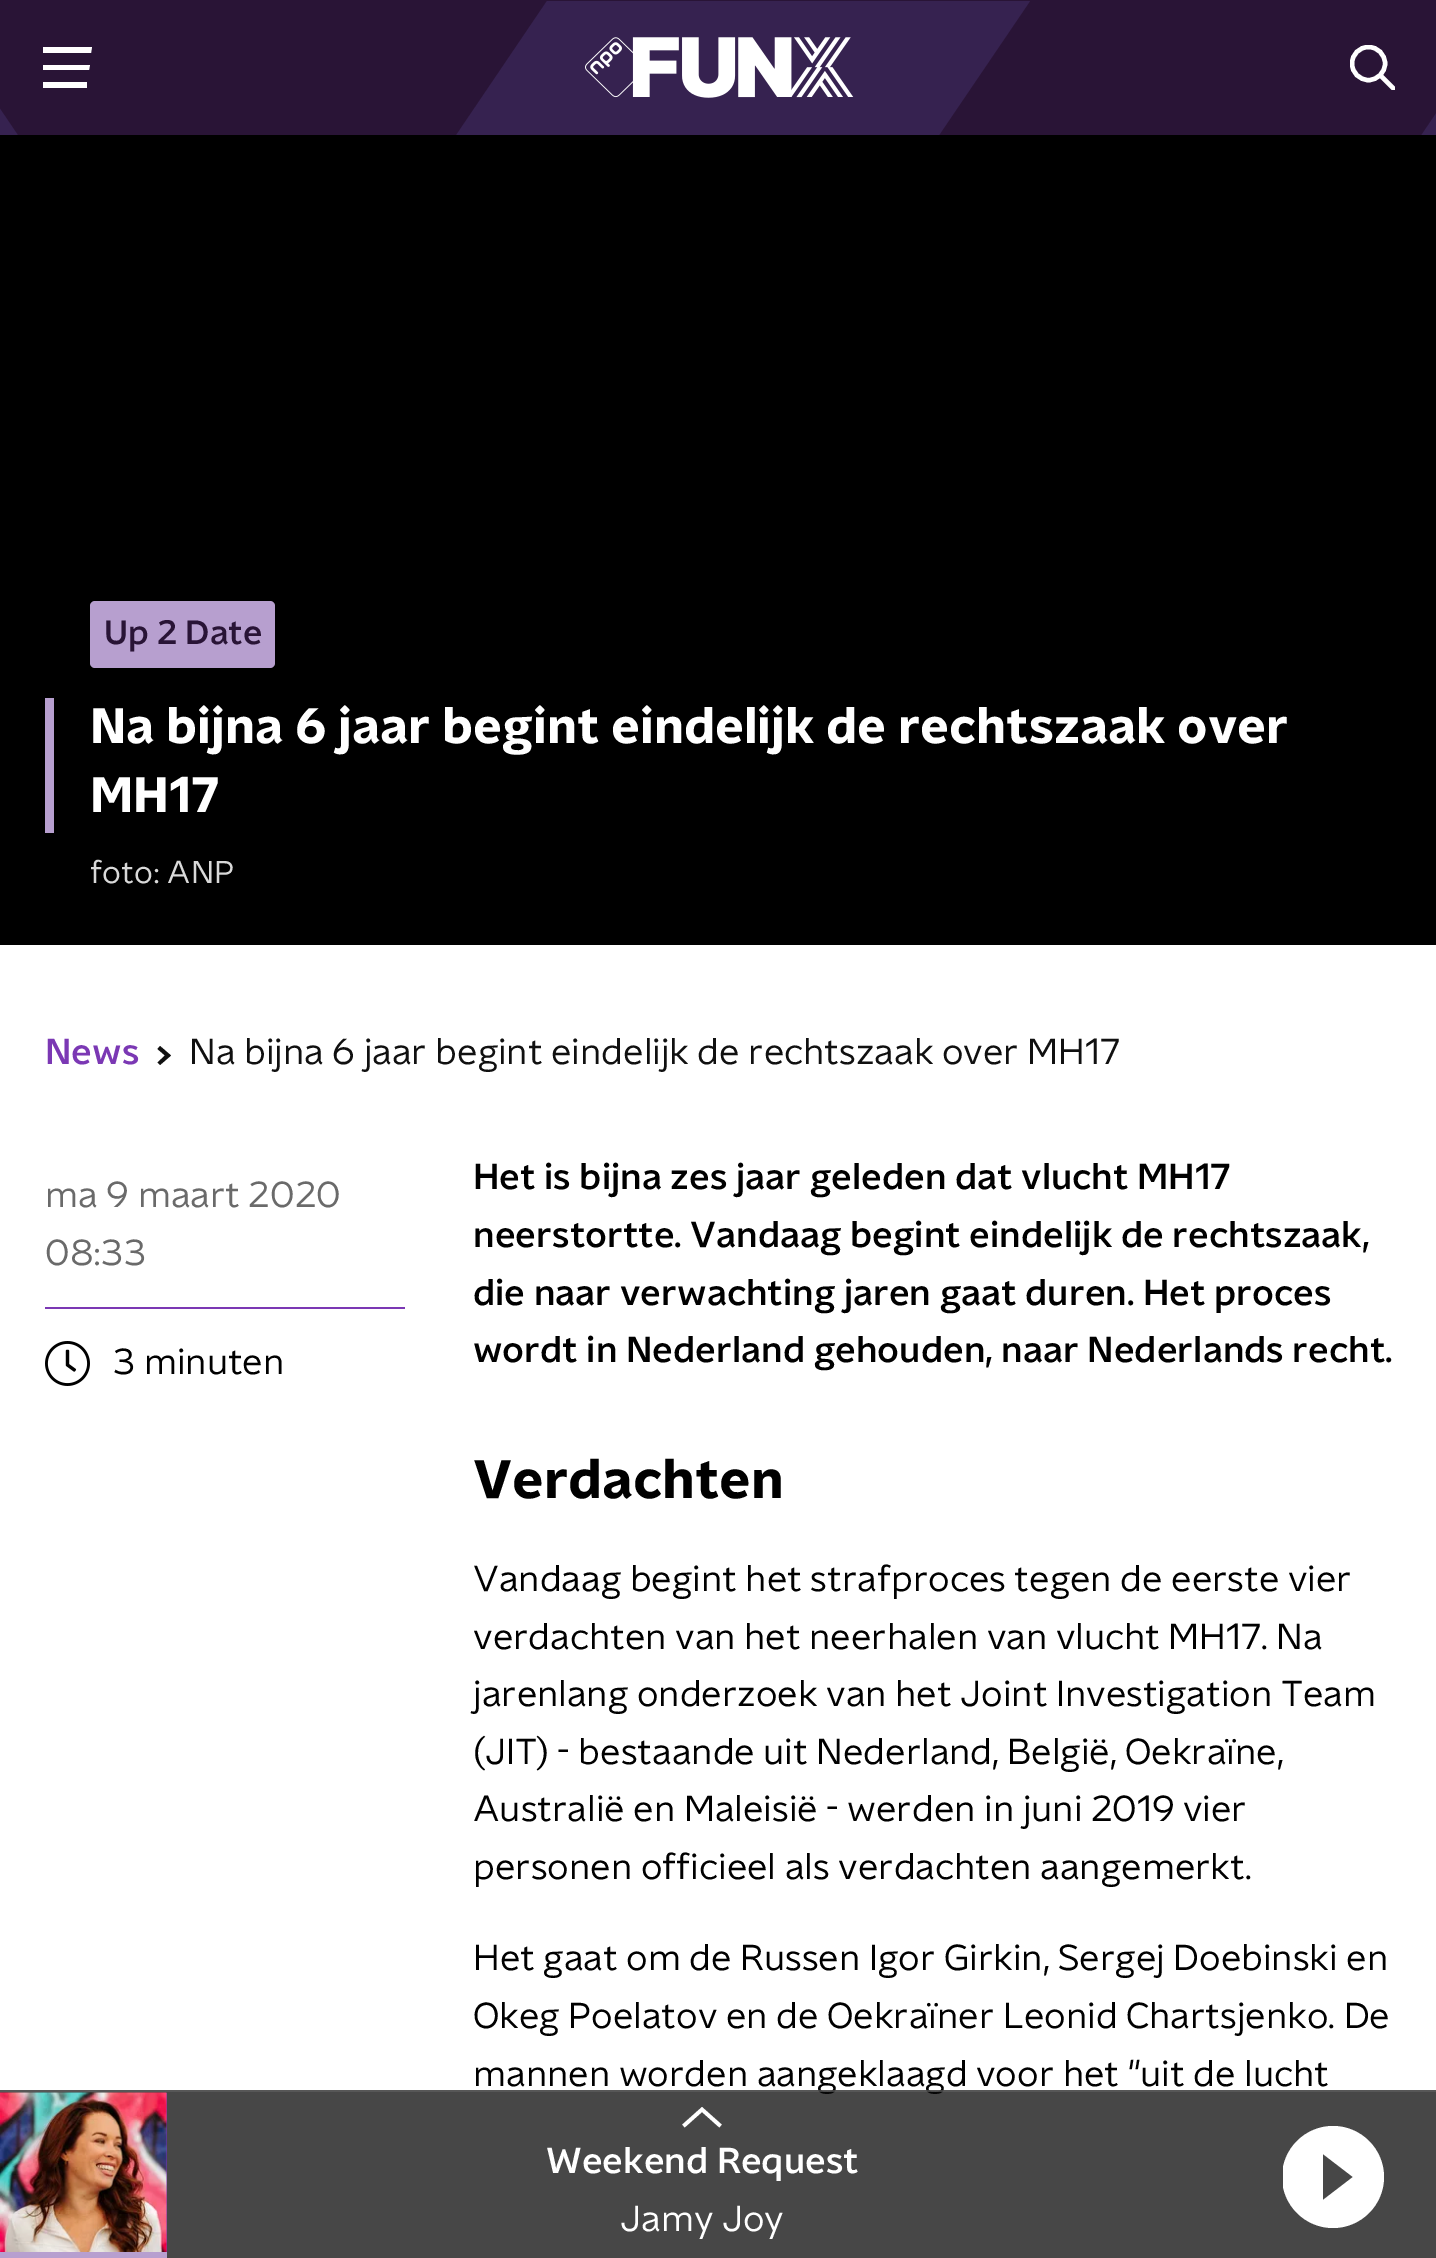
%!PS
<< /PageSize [1436 2258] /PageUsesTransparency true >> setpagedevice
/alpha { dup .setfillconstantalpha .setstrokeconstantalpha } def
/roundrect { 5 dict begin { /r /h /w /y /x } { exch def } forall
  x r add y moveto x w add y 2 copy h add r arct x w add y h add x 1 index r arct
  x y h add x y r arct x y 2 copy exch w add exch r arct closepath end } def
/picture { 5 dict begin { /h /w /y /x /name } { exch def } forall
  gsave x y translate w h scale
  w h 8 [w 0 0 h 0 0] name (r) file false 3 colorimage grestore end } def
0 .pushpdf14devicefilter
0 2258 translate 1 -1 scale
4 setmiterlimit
0 setgray
0 0 1436 2258 rectfill
0.161 0.078 0.212 setrgbcolor
0 0 1436 135 rectfill
gsave
0 0 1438 135 rectclip
0.212 0.133 0.314 setrgbcolor
newpath 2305 971 moveto 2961 1 lineto 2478 1 lineto 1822 971 lineto closepath 1340 971 moveto 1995 1 lineto 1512 1 lineto 857 971 lineto closepath -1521 1 moveto -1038 1 lineto -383 971 lineto -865 971 lineto closepath 374 971 moveto 477 816 lineto 1030 1 lineto 547 1 lineto 237 459 lineto -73 1 lineto -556 1 lineto -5 816 lineto -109 971 lineto closepath fill
grestore
1 setgray
newpath 43 47 moveto 92 47 lineto 91 53 lineto 43 53 lineto closepath 43 65 moveto 90 65 lineto 89 70 lineto 43 70 lineto closepath 43 82 moveto 87 82 lineto 87 88 lineto 43 88 lineto closepath fill
(img1.rgb) 585 37 269 61 picture
gsave
1350 45 45 45 rectclip
4.4 setlinewidth
newpath 1368.5 63.5 16.5 0 360 arc closepath stroke
2 setlinecap
newpath 1380.5 75.5 moveto 1393.5 88.5 lineto stroke
grestore
0.718 0.624 0.812 setrgbcolor
90 601 185 67 5 roundrect fill
/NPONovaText-Medium [33.75 0 0 -33.75 0 0] selectfont
0.161 0.078 0.212 setrgbcolor
104 644 moveto (Up 2 Date) show
0.718 0.624 0.812 setrgbcolor
45 698 9 135 rectfill
/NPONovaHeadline-Bold [49.5 0 0 -49.5 0 0] selectfont
1 setgray
90 743 moveto (Na bijna 6 jaar begint eindelijk de rechtszaak over) show
90 812 moveto (MH17) show
/NPONovaText-Regular [31.5 0 0 -31.5 0 0] selectfont
0.851 setgray
90 883 moveto (foto: ANP) show
1 setgray
0 945 1436 1313 rectfill
/NPONovaText-Medium [36 0 0 -36 0 0] selectfont
0.482 0.22 0.706 setrgbcolor
45 1064 moveto (News) show
0.063 setgray
newpath 160 1046 moveto 171 1055.5 lineto 160 1065 lineto 157.5 1062.5 lineto 165 1055.5 lineto 157.5 1049 lineto closepath eofill
/NPONovaText-Regular [36 0 0 -36 0 0] selectfont
189 1064 moveto (Na bijna 6 jaar begint eindelijk de rechtszaak over MH17) show
0.416 setgray
45 1207 moveto (ma 9 maart 2020) show
45 1265 moveto (08:33) show
0.482 0.22 0.706 setrgbcolor
45 1307 360 2 rectfill
(img2.rgb) 45 1341 45 45 picture
0 setgray
113 1374 moveto (3 minuten) show
/NPONovaText-Medium [36 0 0 -36 0 0] selectfont
473 1189 moveto (Het is bijna zes jaar geleden dat vlucht MH17) show
473 1247 moveto (neerstortte. Vandaag begint eindelijk de rechtszaak,) show
473 1305 moveto (die naar verwachting jaren gaat duren. Het proces) show
473 1362 moveto (wordt in Nederland gehouden, naar Nederlands recht.) show
/NPONovaHeadline-Bold [54 0 0 -54 0 0] selectfont
473 1498 moveto (Verdachten) show
/NPONovaText-Regular [36 0 0 -36 0 0] selectfont
473 1591 moveto (Vandaag begint het strafproces tegen de eerste vier) show
473 1649 moveto (verdachten van het neerhalen van vlucht MH17. Na) show
473 1706 moveto (jarenlang onderzoek van het Joint Investigation Team) show
473 1764 moveto (\(JIT\) - bestaande uit Nederland, België, Oekraïne,) show
473 1821 moveto (Australië en Maleisië - werden in juni 2019 vier) show
473 1879 moveto (personen officieel als verdachten aangemerkt.) show
473 1970 moveto (Het gaat om de Russen Igor Girkin, Sergej Doebinski en) show
473 2028 moveto (Okeg Poelatov en de Oekraïner Leonid Chartsjenko. De) show
473 2086 moveto (mannen worden aangeklaagd voor het "uit de lucht) show
0.75 alpha
0.035 setgray
0 2090 1436 168 rectfill
0.65 alpha
0.373 setgray
0 2090 1436 2 rectfill
1 alpha
0.482 0.22 0.706 setrgbcolor
166 2093 1 159 rectfill
(img3.rgb) 0 2092 167 160 picture
0.718 0.624 0.812 setrgbcolor
0 2252 167 6 rectfill
1 setgray
3.7 setlinewidth
newpath 720.5 2126 moveto 702 2109.5 lineto 683.5 2126 lineto stroke
/NPONovaText-Medium [36 0 0 -36 0 0] selectfont
546 2173 moveto (Weekend Request) show
/NPONovaText-Regular [36 0 0 -36 0 0] selectfont
620 2231 moveto (Jamy Joy) show
gsave
1283 2126 101 102 rectclip
newpath 1333 2126 moveto 1305 2126 1282 2149 1282 2177 curveto 1282 2205 1305 2228 1333 2228 curveto 1361 2228 1384 2205 1384 2177 curveto 1384 2149 1361 2126 1333 2126 curveto closepath 1323 2200 moveto 1323 2154 lineto 1353 2177 lineto closepath fill
grestore
.poppdf14devicefilter showpage
